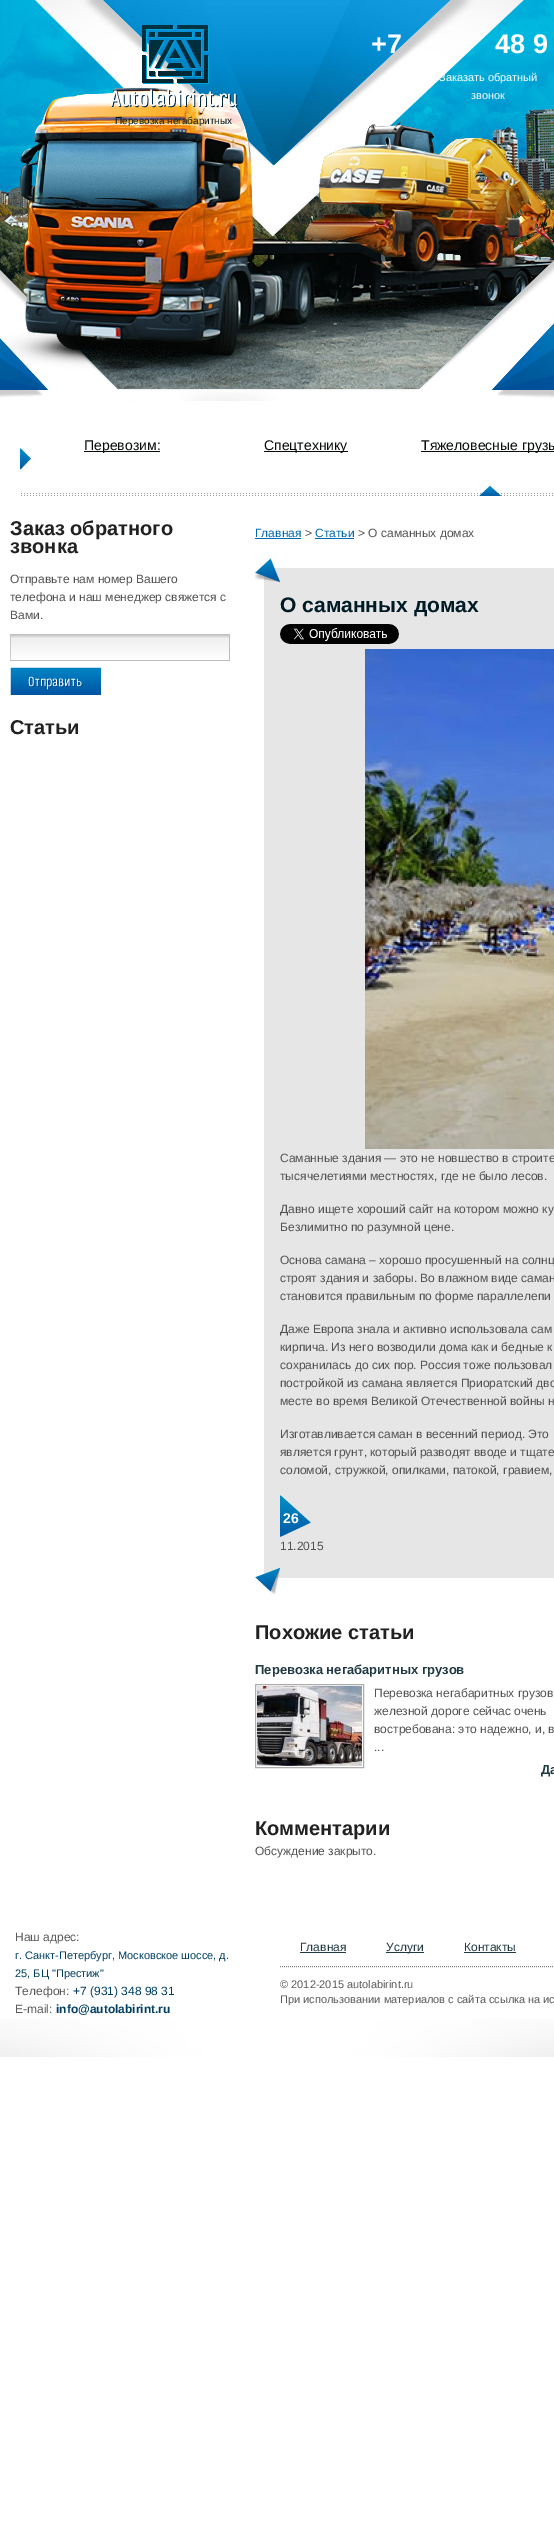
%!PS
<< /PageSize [554 2543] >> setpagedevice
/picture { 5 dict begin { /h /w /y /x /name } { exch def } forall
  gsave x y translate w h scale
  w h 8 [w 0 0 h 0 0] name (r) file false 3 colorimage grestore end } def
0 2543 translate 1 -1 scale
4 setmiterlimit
1 setgray
0 0 554 2543 rectfill
(img1.rgb) 0 2019 554 38 picture
(img2.rgb) 0 0 554 401 picture
/LiberationSans-Bold [27 0 0 -27 0 0] selectfont
371 53 moveto (+7) show
495 53 moveto (48 9) show
/LiberationSans-Regular [11 0 0 -11 0 0] selectfont
439 81 moveto (Заказать обратный) show
471 99 moveto (звонок) show
(img3.rgb) 110 25 128 83 picture
/LiberationSans-Regular [10 0 0 -10 0 0] selectfont
0 0.106 0.149 setrgbcolor
115 124 moveto (Перевозка негабаритных) show
(img4.rgb) 20 447 534 49 picture
0.027 0.047 0.039 setrgbcolor
84 451 76 1 rectfill
/LiberationSans-Regular [14 0 0 -14 0 0] selectfont
84 450 moveto (Перевозим:) show
264 451 84 1 rectfill
264 450 moveto (Спецтехнику) show
421 451 133 1 rectfill
421 450 moveto (Тяжеловесные грузы) show
/LiberationSans-Bold [20 0 0 -20 0 0] selectfont
0.129 setgray
10 535 moveto (Заказ обратного) show
10 553 moveto (звонка) show
/LiberationSans-Regular [12 0 0 -12 0 0] selectfont
0.322 setgray
10 583 moveto (Отправьте нам номер Вашего) show
10 601 moveto (телефона и наш менеджер свяжется с) show
10 619 moveto (Вами.) show
(img5.rgb) 10 634 220 27 picture
(img6.rgb) 10 667 91 28 picture
/LiberationSans-Bold [20 0 0 -20 0 0] selectfont
0.129 setgray
10 734 moveto (Статьи) show
/LiberationSans-Regular [12 0 0 -12 0 0] selectfont
0 0.412 0.694 setrgbcolor
255 537 moveto (Главная) show
255 538 46 1 rectfill
0.322 setgray
305 537 moveto (>) show
0 0.412 0.694 setrgbcolor
315 537 moveto (Статьи) show
315 538 39 1 rectfill
0.322 setgray
358 537 moveto (> О саманных домах) show
(img7.rgb) 255 552 299 44 picture
0.902 setgray
264 596 290 959 rectfill
/LiberationSans-Bold [21 0 0 -21 0 0] selectfont
0 0.106 0.149 setrgbcolor
280 612 moveto (О саманных домах) show
(img8.rgb) 280 624 119 20 picture
(img9.rgb) 365 649 189 500 picture
/LiberationSans-Regular [12 0 0 -12 0 0] selectfont
0.322 setgray
280 1162 moveto (Саманные здания — это не новшество в строите) show
280 1180 moveto (тысячелетиями местностях, где не было лесов.) show
280 1213 moveto (Давно ищете хороший сайт на котором можно ку) show
280 1231 moveto (Безлимитно по разумной цене.) show
280 1264 moveto (Основа самана – хорошо просушенный на солнц) show
280 1282 moveto (строят здания и заборы. Во влажном виде саман) show
280 1300 moveto (становится правильным по форме параллелепи) show
280 1333 moveto (Даже Европа знала и активно использовала сам) show
280 1351 moveto (кирпича. Из него возводили дома как и бедные к) show
280 1369 moveto (сохранилась до сих пор. Россия тоже пользовал) show
280 1387 moveto (постройкой из самана является Приоратский дво) show
280 1405 moveto (месте во время Великой Отечественной войны н) show
280 1438 moveto (Изготавливается саман в весенний период. Это) show
280 1456 moveto (является грунт, который разводят вводе и тщате) show
280 1474 moveto (соломой, стружкой, опилками, патокой, гравием,) show
(img10.rgb) 280 1495 31 42 picture
/LiberationSans-Bold [14 0 0 -14 0 0] selectfont
1 setgray
283 1523 moveto (26) show
/LiberationSans-Regular [12 0 0 -12 0 0] selectfont
0.322 setgray
280 1550 moveto (11.2015) show
(img11.rgb) 255 1555 299 40 picture
/LiberationSans-Bold [20 0 0 -20 0 0] selectfont
0.129 setgray
255 1639 moveto (Похожие статьи) show
/LiberationSans-Bold [13 0 0 -13 0 0] selectfont
0.129 0.224 0.263 setrgbcolor
255 1674 moveto (Перевозка негабаритных грузов) show
0.678 setgray
255.5 1684.5 108 83 rectstroke
(img12.rgb) 257 1686 105 80 picture
/LiberationSans-Regular [12 0 0 -12 0 0] selectfont
0.322 setgray
374 1697 moveto (Перевозка негабаритных грузов) show
374 1715 moveto (железной дороге сейчас очень) show
374 1733 moveto (востребована: это надежно, и, в) show
374 1751 moveto (...) show
/LiberationSans-Bold [13 0 0 -13 0 0] selectfont
0.129 0.224 0.263 setrgbcolor
541 1774 moveto (Да) show
/LiberationSans-Bold [20 0 0 -20 0 0] selectfont
0.129 setgray
255 1835 moveto (Комментарии) show
/LiberationSans-Regular [12 0 0 -12 0 0] selectfont
0.322 setgray
255 1855 moveto (Обсуждение закрыто.) show
0.353 setgray
15 1941 moveto (Наш адрес:) show
/LiberationSans-Regular [11 0 0 -11 0 0] selectfont
0 0.247 0.38 setrgbcolor
15 1959 moveto (г. Санкт-Петербург, Московское шоссе, д.) show
15 1977 moveto (25, БЦ "Престиж") show
/LiberationSans-Regular [12 0 0 -12 0 0] selectfont
0.353 setgray
15 1995 moveto (Телефон:) show
0 0.247 0.38 setrgbcolor
73 1995 moveto (+7 \(931\) 348 98 31) show
0.353 setgray
15 2013 moveto (E-mail:) show
/LiberationSans-Bold [12 0 0 -12 0 0] selectfont
0 0.247 0.38 setrgbcolor
56 2013 moveto (info@autolabirint.ru) show
0.498 setgray
[1 1] 0 setdash
newpath 280 1966.5 moveto 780 1966.5 lineto stroke
/LiberationSans-Regular [12 0 0 -12 0 0] selectfont
0.129 0.224 0.263 setrgbcolor
300 1951 moveto (Главная) show
0.133 0.224 0.263 setrgbcolor
300 1952 46 1 rectfill
386 1952 38 1 rectfill
0.129 0.224 0.263 setrgbcolor
386 1951 moveto (Услуги) show
464 1951 moveto (Контакты) show
0.133 0.224 0.263 setrgbcolor
464 1952 52 1 rectfill
/LiberationSans-Regular [11 0 0 -11 0 0] selectfont
0.353 setgray
280 1988 moveto (© 2012-2015 autolabirint.ru) show
280 2003 moveto (При использовании материалов с сайта ссылка на ис) show
showpage
